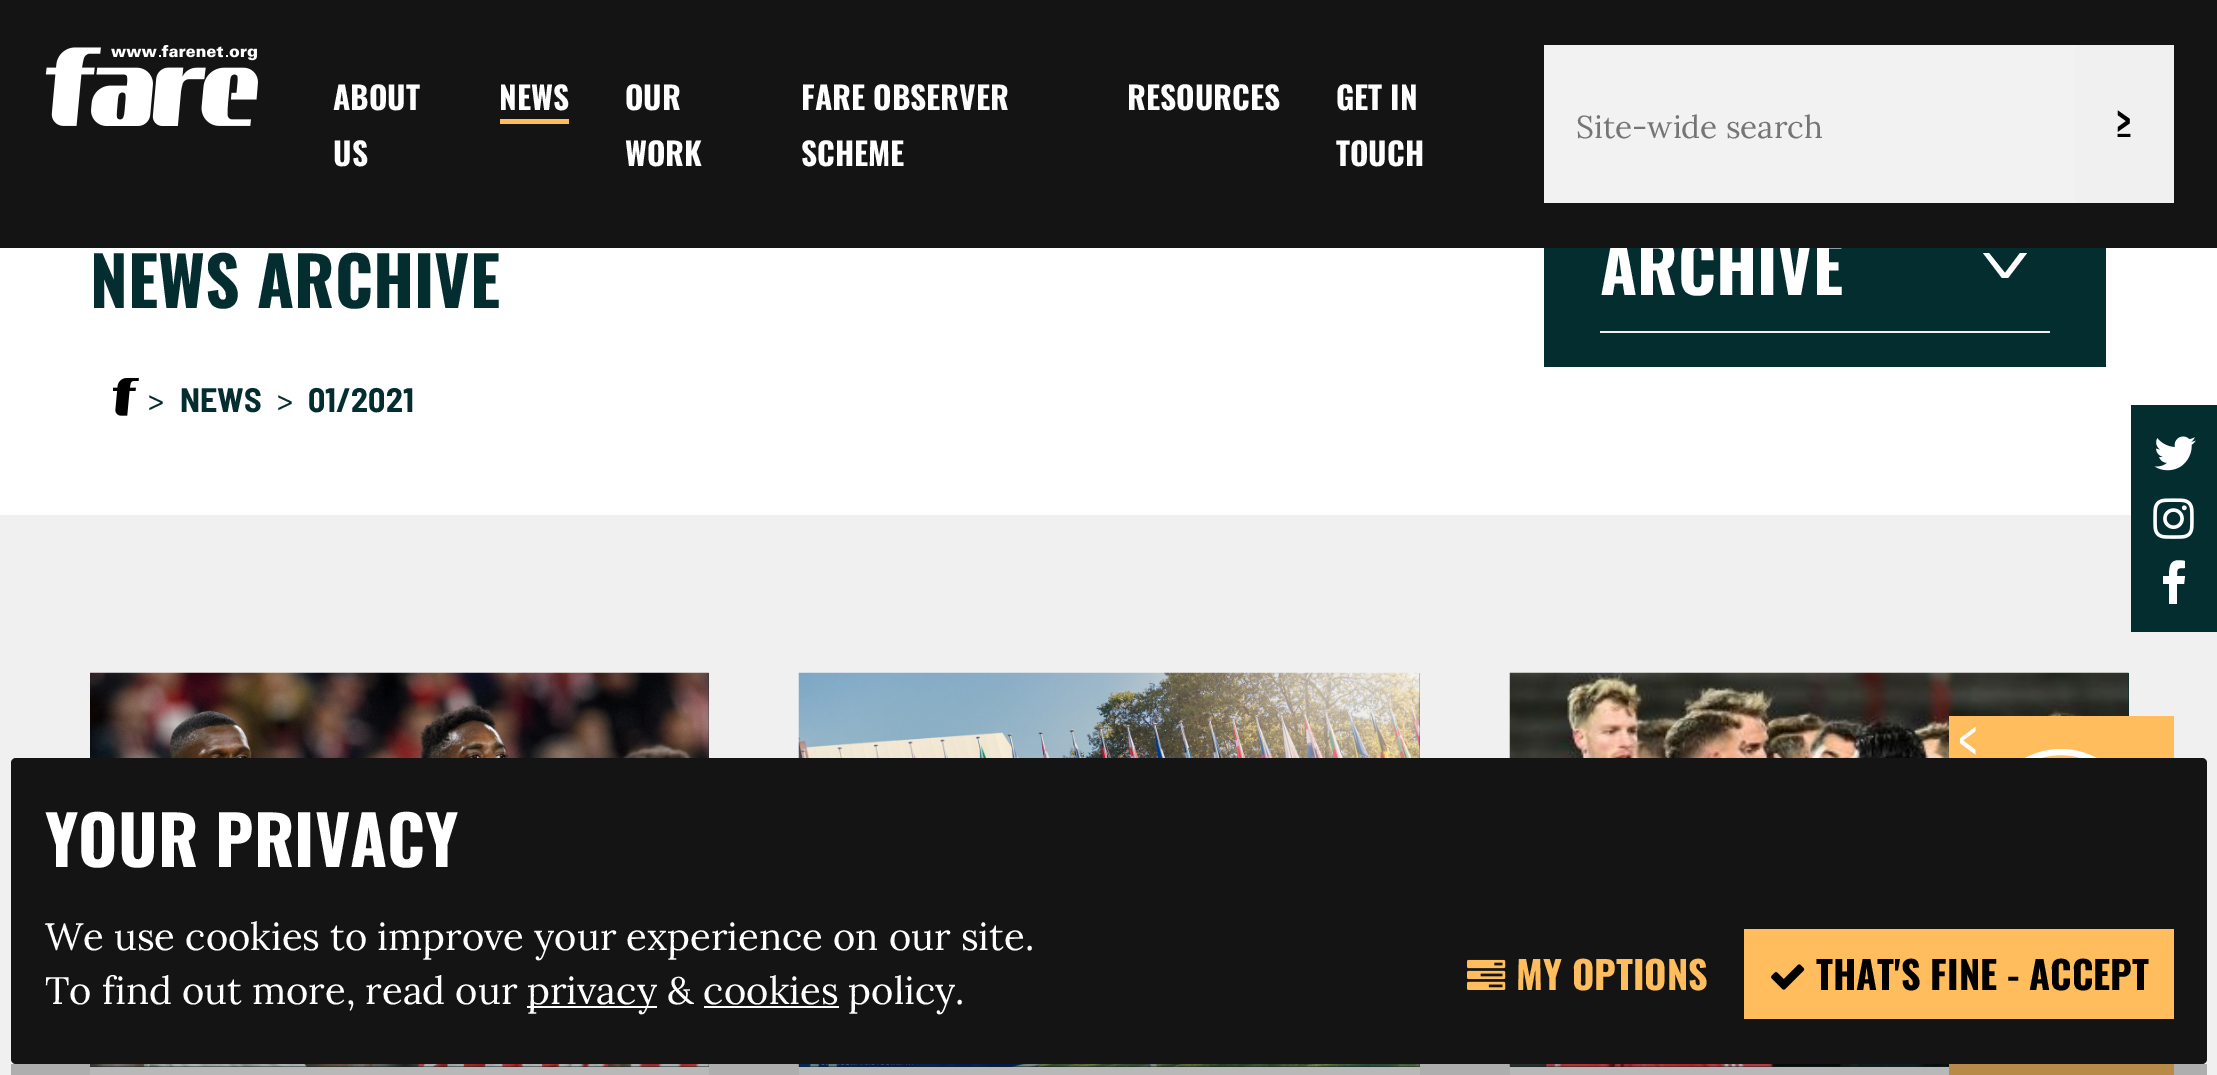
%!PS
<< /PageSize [2217 1075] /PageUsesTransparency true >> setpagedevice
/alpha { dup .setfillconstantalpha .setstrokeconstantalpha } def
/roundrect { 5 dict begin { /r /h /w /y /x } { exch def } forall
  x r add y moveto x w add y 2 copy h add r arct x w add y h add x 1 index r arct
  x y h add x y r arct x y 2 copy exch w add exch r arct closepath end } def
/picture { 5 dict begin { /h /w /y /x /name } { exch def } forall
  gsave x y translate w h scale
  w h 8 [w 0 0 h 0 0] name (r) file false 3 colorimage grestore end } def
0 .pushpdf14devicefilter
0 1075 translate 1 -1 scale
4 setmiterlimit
1 setgray
0 0 2217 1075 rectfill
0.016 0.176 0.188 setrgbcolor
1544 248 562 119 rectfill
/Oswald-Bold [67.5 0 0 -67.5 0 0] selectfont
1 setgray
1600 295 moveto (ARCHIVE) show
0.078 setgray
0 0 2217 248 rectfill
(img1.rgb) 45 45 213 81 picture
/Oswald-Bold [31.5 0 0 -31.5 0 0] selectfont
1 setgray
333 110 moveto (ABOUT) show
333 166 moveto (US) show
499 110 moveto (NEWS) show
1 0.741 0.365 setrgbcolor
500 119 69 5 rectfill
1 setgray
625 110 moveto (OUR) show
625 166 moveto (WORK) show
801 110 moveto (FARE OBSERVER) show
801 166 moveto (SCHEME) show
1127 110 moveto (RESOURCES) show
1336 110 moveto (GET IN) show
1336 166 moveto (TOUCH) show
0.949 setgray
1544 45 531 158 rectfill
/Lora-Regular [31.5 0 0 -31.5 0 0] selectfont
0.459 setgray
1576 138 moveto (Site-wide search) show
0.941 setgray
2075 45 99 158 rectfill
(img2.rgb) 2117 110 14 27 picture
/Oswald-Bold [67.5 0 0 -67.5 0 0] selectfont
0.016 0.176 0.188 setrgbcolor
90 308 moveto (NEWS ARCHIVE) show
(img3.rgb) 113 378 26 38 picture
/BarlowSemiCondensed-Regular [34 0 0 -34 0 0] selectfont
148 412 moveto (>) show
/BarlowSemiCondensed-Bold [34 0 0 -34 0 0] selectfont
180 412 moveto (NEWS) show
/BarlowSemiCondensed-Regular [34 0 0 -34 0 0] selectfont
277 412 moveto (>) show
/BarlowSemiCondensed-Bold [34 0 0 -34 0 0] selectfont
308 412 moveto (01/2021) show
0.941 setgray
1600 331 450 2 rectfill
1 setgray
newpath 1989 253 moveto 2005 273 lineto 2020 253 lineto 2027 253 lineto 2008 278 lineto 2002 278 lineto 1983 253 lineto closepath fill
0.941 setgray
0 515 2217 560 rectfill
0.016 0.176 0.188 setrgbcolor
90 673 619 394 rectfill
(img4.rgb) 90 672 619 395 picture
1 setgray
90 1067 619 8 rectfill
0.016 0.176 0.188 setrgbcolor
799 673 621 394 rectfill
(img5.rgb) 798 672 622 395 picture
1 setgray
799 1067 621 8 rectfill
0.016 0.176 0.188 setrgbcolor
1510 673 619 394 rectfill
(img6.rgb) 1509 672 620 395 picture
1 setgray
1510 1067 439 8 rectfill
0.016 0.176 0.188 setrgbcolor
2131 405 86 227 rectfill
(img7.rgb) 2154 436 42 35 picture
(img8.rgb) 2153 498 41 41 picture
1 setgray
newpath 2185 561 moveto 2185 568 lineto 2177 568 2177 568 2177 576 curveto 2185 576 lineto 2184 584 lineto 2177 584 lineto 2177 604 lineto 2169 604 lineto 2169 584 lineto 2163 584 lineto 2163 576 lineto 2169 576 lineto 2169 564 2171 558 2185 561 curveto closepath fill
1 0.741 0.365 setrgbcolor
1949 716 225 359 rectfill
1 setgray
newpath 1975.5 731 moveto 1963 740.5 lineto 1975.5 750 lineto 1975.5 754.5 lineto 1960 743 lineto 1960 738.5 lineto 1975.5 727 lineto closepath fill
(img9.rgb) 2024 749 73 9 picture
0.078 setgray
11 758 2196 306 5 roundrect fill
/Oswald-Bold [67.5 0 0 -67.5 0 0] selectfont
1 setgray
45 867 moveto (YOUR PRIVACY) show
/Lora-Regular [38.25 0 0 -38.25 0 0] selectfont
45 950 moveto (We use cookies to improve your experience on our site.) show
45 1004 moveto (To find out more, read our) show
527 1006 130 2 rectfill
527 1004 moveto (privacy & cookies policy.) show
704 1006 135 2 rectfill
(img10.rgb) 1467 959 39 31 picture
/Oswald-Bold [38.25 0 0 -38.25 0 0] selectfont
1 0.741 0.365 setrgbcolor
1516 990 moveto (MY OPTIONS) show
1744 929 430 90 rectfill
(img11.rgb) 1771 964 34 26 picture
0 setgray
1816 990 moveto (THAT'S FINE - ACCEPT) show
0.3 alpha
0.078 setgray
11 1064 2196 11 rectfill
.poppdf14devicefilter showpage
